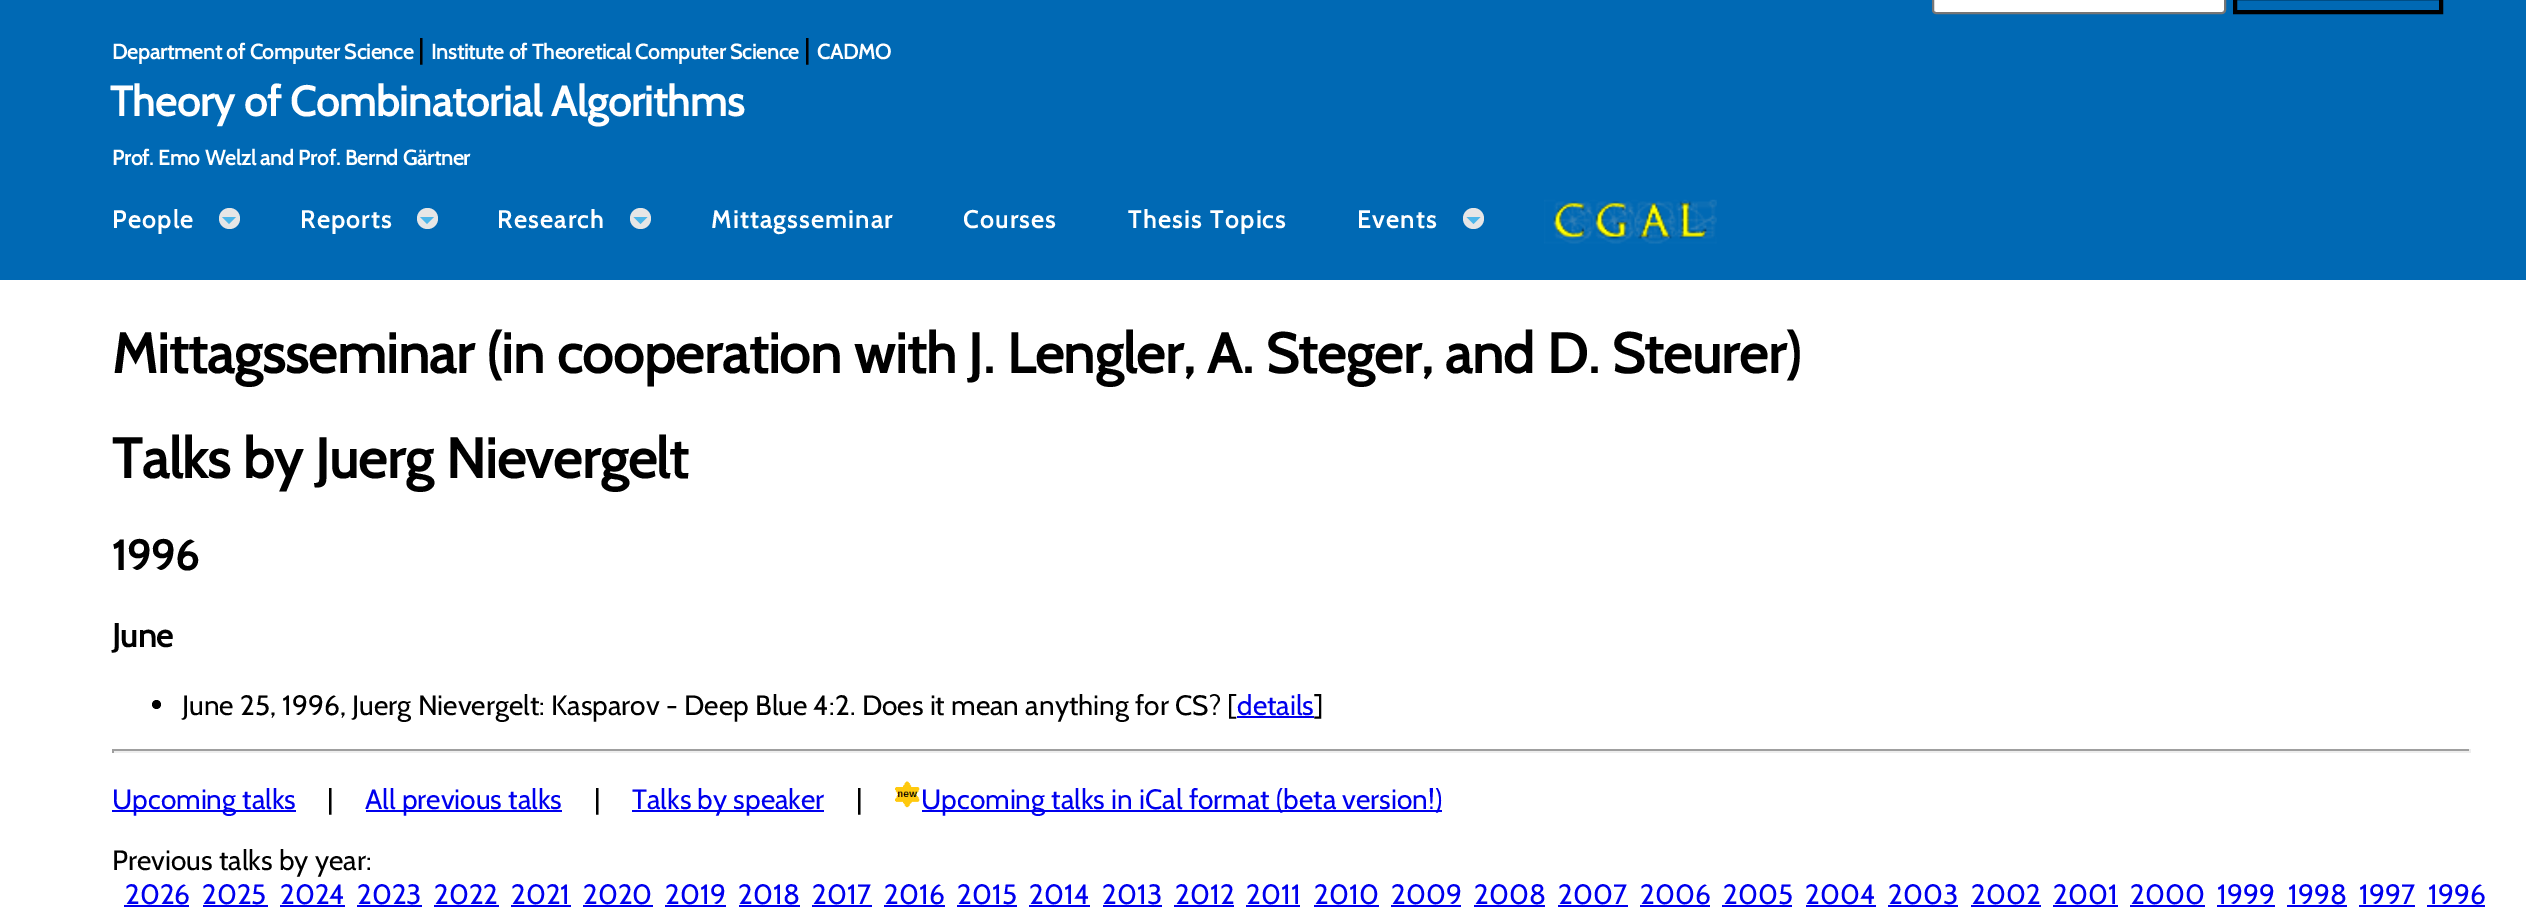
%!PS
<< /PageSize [2526 909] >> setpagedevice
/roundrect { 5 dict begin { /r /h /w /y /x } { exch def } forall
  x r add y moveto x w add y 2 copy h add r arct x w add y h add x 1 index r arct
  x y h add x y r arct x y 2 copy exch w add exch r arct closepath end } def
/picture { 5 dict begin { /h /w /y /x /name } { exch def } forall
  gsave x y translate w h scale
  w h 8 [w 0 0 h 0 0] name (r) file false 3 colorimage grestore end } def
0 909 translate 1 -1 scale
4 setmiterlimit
1 setgray
0 0 2526 909 rectfill
0 0.412 0.706 setrgbcolor
0 0 2526 280 rectfill
1 setgray
1933 -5 292 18 3 roundrect gsave fill grestore
0.463 setgray
2 setlinewidth
stroke
0 setgray
4 setlinewidth
2235 -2 206 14 rectstroke
/Cabin-Bold [21 0 0 -21 0 0] selectfont
1 setgray
112 59 moveto (Department of Computer Science) show
/Cabin-Regular [28 0 0 -28 0 0] selectfont
0 setgray
418 59 moveto (|) show
/Cabin-Bold [21 0 0 -21 0 0] selectfont
1 setgray
431 59 moveto (Institute of Theoretical Computer Science) show
/Cabin-Regular [28 0 0 -28 0 0] selectfont
0 setgray
804 59 moveto (|) show
/Cabin-Bold [21 0 0 -21 0 0] selectfont
1 setgray
817 59 moveto (CADMO) show
/Cabin-Bold [42 0 0 -42 0 0] selectfont
110 116 moveto (Theory of Combinatorial Algorithms) show
/Cabin-Bold [21 0 0 -21 0 0] selectfont
112 165 moveto (Prof. Emo Welzl and Prof. Bernd Gärtner) show
/Cabin-Bold [24.5 0 0 -24.5 0 0] selectfont
112 228 moveto 1.75 0 (People) ashow
0.902 setgray
newpath 229.5 218.5 10.5 0 360 arc closepath fill
0.298 0.714 0.918 setrgbcolor
newpath 222 217 moveto 236 217 lineto 229 224 lineto closepath fill
1 setgray
300 228 moveto 1.75 0 (Reports) ashow
0.902 setgray
newpath 427.5 218.5 10.5 0 360 arc closepath fill
0.298 0.714 0.918 setrgbcolor
newpath 420 217 moveto 434 217 lineto 427 224 lineto closepath fill
1 setgray
497 228 moveto 1.75 0 (Research) ashow
0.902 setgray
newpath 640.5 218.5 10.5 0 360 arc closepath fill
0.298 0.714 0.918 setrgbcolor
newpath 633.5 217 moveto 647.5 217 lineto 640.5 224 lineto closepath fill
1 setgray
711 228 moveto 1.75 0 (Mittagsseminar) ashow
963 228 moveto 1.75 0 (Courses) ashow
1128 228 moveto 1.75 0 (Thesis Topics) ashow
1357 228 moveto 1.75 0 (Events) ashow
0.902 setgray
newpath 1473.5 218.5 10.5 0 360 arc closepath fill
0.298 0.714 0.918 setrgbcolor
newpath 1466.5 217 moveto 1480.5 217 lineto 1473.5 224 lineto closepath fill
(img1.rgb) 1544 199 173 45 picture
/Cabin-Bold [56 0 0 -56 0 0] selectfont
0 setgray
112 373 moveto (Mittagsseminar \(in cooperation with J. Lengler, A. Steger, and D. Steurer\)) show
112 478 moveto (Talks by Juerg Nievergelt) show
/Cabin-Bold [42 0 0 -42 0 0] selectfont
112 570 moveto (1996) show
/Cabin-Bold [33 0 0 -33 0 0] selectfont
112 647 moveto (June) show
newpath 156.5 704.5 4.5 0 360 arc closepath fill
/Cabin-Regular [28 0 0 -28 0 0] selectfont
182 715 moveto (June 25, 1996, Juerg Nievergelt: Kasparov - Deep Blue 4:2. Does it mean anything for CS? [) show
0 0 0.933 setrgbcolor
1237 715 moveto (details) show
1237 716 77 2 rectfill
0 setgray
1314 715 moveto (]) show
0.624 setgray
112 749 2359 2 rectfill
0.933 setgray
2469 749 2 4 rectfill
112 751 2359 2 rectfill
0.624 setgray
112 749 2 4 rectfill
0 0 0.933 setrgbcolor
112 810 184 2 rectfill
112 809 moveto (Upcoming talks) show
0 setgray
327 809 moveto (|) show
0 0 0.933 setrgbcolor
366 810 196 2 rectfill
365 809 moveto (All previous talks) show
0 setgray
594 809 moveto (|) show
0 0 0.933 setrgbcolor
632 810 192 2 rectfill
632 809 moveto (Talks by speaker) show
0 setgray
856 809 moveto (|) show
(img2.rgb) 895 781 25 27 picture
0 0 0.933 setrgbcolor
922 810 520 2 rectfill
921 809 moveto (Upcoming talks in iCal format \(beta version!\)) show
0 setgray
112 870 moveto (Previous talks by year:) show
0 0 0.933 setrgbcolor
125 904 moveto (2026) show
124 905 65 2 rectfill
202 904 moveto (2025) show
203 905 65 2 rectfill
280 904 moveto (2024) show
280 905 65 2 rectfill
357 904 moveto (2023) show
357 905 65 2 rectfill
434 904 moveto (2022) show
434 905 65 2 rectfill
511 904 moveto (2021) show
511 905 60 2 rectfill
583 904 moveto (2020) show
583 905 70 2 rectfill
665 904 moveto (2019) show
665 905 61 2 rectfill
738 904 moveto (2018) show
739 905 61 2 rectfill
812 904 moveto (2017) show
812 905 60 2 rectfill
884 904 moveto (2016) show
884 905 61 2 rectfill
957 904 moveto (2015) show
957 905 60 2 rectfill
1029 904 moveto (2014) show
1029 905 61 2 rectfill
1102 904 moveto (2013) show
1103 905 59 2 rectfill
1175 904 moveto (2012) show
1174 905 60 2 rectfill
1246 904 moveto (2011) show
1246 905 54 2 rectfill
1314 904 moveto (2010) show
1314 905 65 2 rectfill
1391 904 moveto (2009) show
1391 905 70 2 rectfill
1474 904 moveto (2008) show
1474 905 71 2 rectfill
1558 904 moveto (2007) show
1558 905 70 2 rectfill
1640 904 moveto (2006) show
1640 905 70 2 rectfill
1723 904 moveto (2005) show
1722 905 70 2 rectfill
1805 904 moveto (2004) show
1806 905 70 2 rectfill
1888 904 moveto (2003) show
1888 905 70 2 rectfill
1971 904 moveto (2002) show
1971 905 70 2 rectfill
2053 904 moveto (2001) show
2053 905 65 2 rectfill
2130 904 moveto (2000) show
2130 905 75 2 rectfill
2217 904 moveto (1999) show
2217 905 58 2 rectfill
2288 904 moveto (1998) show
2287 905 60 2 rectfill
2359 904 moveto (1997) show
2359 905 56 2 rectfill
2428 904 moveto (1996) show
2427 905 58 2 rectfill
showpage
